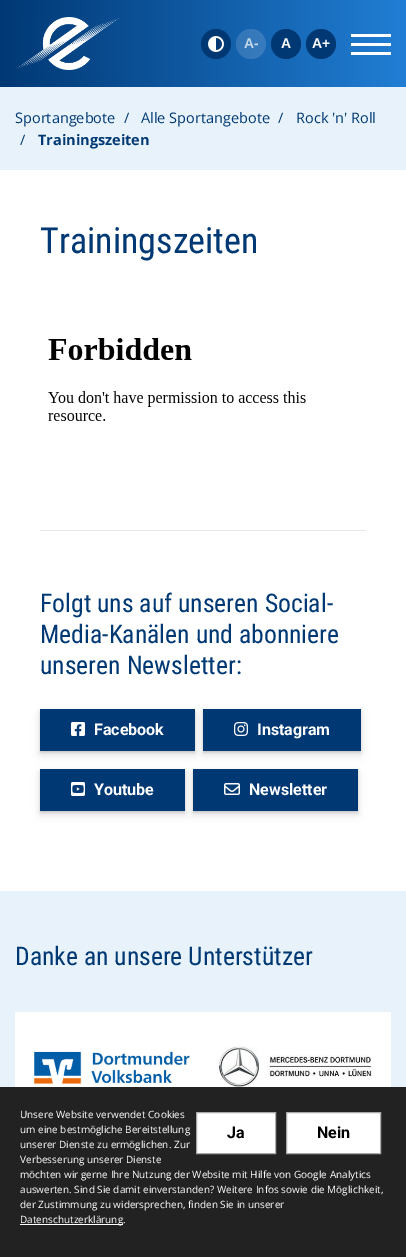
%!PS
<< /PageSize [406 1257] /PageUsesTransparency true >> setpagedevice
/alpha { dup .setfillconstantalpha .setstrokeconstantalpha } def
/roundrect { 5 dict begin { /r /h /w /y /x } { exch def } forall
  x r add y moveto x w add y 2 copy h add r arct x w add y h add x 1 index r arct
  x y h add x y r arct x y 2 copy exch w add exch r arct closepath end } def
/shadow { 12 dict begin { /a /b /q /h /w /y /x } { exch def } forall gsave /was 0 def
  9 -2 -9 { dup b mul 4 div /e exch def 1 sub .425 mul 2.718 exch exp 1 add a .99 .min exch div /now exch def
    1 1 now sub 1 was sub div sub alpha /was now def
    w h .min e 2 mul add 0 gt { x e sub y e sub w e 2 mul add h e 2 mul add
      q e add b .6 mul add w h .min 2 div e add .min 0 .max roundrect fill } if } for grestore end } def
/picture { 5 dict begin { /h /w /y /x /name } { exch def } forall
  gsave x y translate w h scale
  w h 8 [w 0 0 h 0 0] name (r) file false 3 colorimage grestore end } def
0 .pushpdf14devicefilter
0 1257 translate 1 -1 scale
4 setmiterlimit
1 setgray
0 0 406 1257 rectfill
gsave newpath 0 0 moveto 406 0 lineto 406 87 lineto 0 87 lineto closepath clip newpath
<< /ShadingType 2 /ColorSpace /DeviceRGB /Coords [0 44 406 43] /Extend [true true] /Function << /FunctionType 2 /Domain [0 1] /C0 [0 0.22 0.455] /C1 [0.129 0.494 0.831] /N 1 >> >> shfill grestore
(img1.rgb) 16 17 104 53 picture
0 0.22 0.455 setrgbcolor
newpath 216 44 15 0 360 arc closepath fill
(img2.rgb) 208 36 16 16 picture
0.14 alpha
1 setgray
newpath 251 44 15 0 360 arc closepath fill
/LiberationSans-Bold [14 0 0 -14 0 0] selectfont
1 alpha
0.761 0.843 0.918 setrgbcolor
244 48 moveto (A-) show
0 0.22 0.455 setrgbcolor
newpath 286 44 15 0 360 arc closepath fill
1 setgray
281 48 moveto (A) show
0 0.22 0.455 setrgbcolor
newpath 321 44 15 0 360 arc closepath fill
1 setgray
312 48 moveto (A+) show
351 43 40 3 rectfill
351 34 40 3 rectfill
351 52 40 3 rectfill
0.906 0.949 0.98 setrgbcolor
0 87 406 83 rectfill
/OpenSans-Regular [14.5 0 0 -14.5 0 0] selectfont
0 0.22 0.455 setrgbcolor
15 123 moveto (Sportangebote) show
124 123 moveto (/) show
141 123 moveto (Alle Sportangebote) show
278 123 moveto (/) show
296 123 moveto (Rock 'n' Roll) show
20 145 moveto (/) show
/OpenSans-Bold [14.5 0 0 -14.5 0 0] selectfont
38 145 moveto (Trainingszeiten) show
/RobotoCondensed-Regular [36 0 0 -36 0 0] selectfont
40 253 moveto (Trainingszeiten) show
(img3.rgb) 48 338 258 83 picture
0.902 setgray
40 530 326 1 rectfill
/RobotoCondensed-Regular [25.6 0 0 -25.6 0 0] selectfont
0 0.22 0.455 setrgbcolor
40 612 moveto (Folgt uns auf unseren Social-) show
40 643 moveto (Media-Kanälen und abonniere) show
40 674 moveto (unseren Newsletter:) show
0 setgray
40 714 155 42 0 5.5 0.06 shadow
40 712 155 42 0 3 0.06 shadow
40 711 155 42 0 1.5 0.07 shadow
40 710 155 42 0 0.5 0.05 shadow
0 0.22 0.455 setrgbcolor
40 709 155 42 rectfill
(img4.rgb) 71 722 14 14 picture
/Roboto-Bold [16 0 0 -16 0 0] selectfont
1 setgray
94 735 moveto (Facebook) show
0 setgray
203 714 158 42 0 5.5 0.06 shadow
203 712 158 42 0 3 0.06 shadow
203 711 158 42 0 1.5 0.07 shadow
203 710 158 42 0 0.5 0.05 shadow
0 0.22 0.455 setrgbcolor
203 709 158 42 rectfill
(img5.rgb) 234 722 14 14 picture
1 setgray
257 735 moveto (Instagram) show
0 setgray
40 774 145 42 0 5.5 0.06 shadow
40 772 145 42 0 3 0.06 shadow
40 771 145 42 0 1.5 0.07 shadow
40 770 145 42 0 0.5 0.05 shadow
0 0.22 0.455 setrgbcolor
40 769 145 42 rectfill
(img6.rgb) 71 782 14 14 picture
1 setgray
94 795 moveto (Youtube) show
0 setgray
193 774 165 42 0 5.5 0.06 shadow
193 772 165 42 0 3 0.06 shadow
193 771 165 42 0 1.5 0.07 shadow
193 770 165 42 0 0.5 0.05 shadow
0 0.22 0.455 setrgbcolor
193 769 165 42 rectfill
(img7.rgb) 224 783 16 12 picture
1 setgray
249 795 moveto (Newsletter) show
0.906 0.949 0.98 setrgbcolor
0 891 406 196 rectfill
/RobotoCondensed-Regular [25.6 0 0 -25.6 0 0] selectfont
0 0.22 0.455 setrgbcolor
15 965 moveto (Danke an unsere Unterstützer) show
(img8.rgb) 15 1012 188 75 picture
(img9.rgb) 203 1012 188 75 picture
0.133 setgray
0 1087 406 170 rectfill
/OpenSans-Regular [10 0 0 -10 0 0] selectfont
1 setgray
20 1118 moveto (Unsere Website verwendet Cookies) show
20 1133 moveto (um eine bestmögliche Bereitstellung) show
20 1148 moveto (unserer Dienste zu ermöglichen. Zur) show
20 1163 moveto (Verbesserung unserer Dienste) show
20 1178 moveto (möchten wir gerne Ihre Nutzung der Website mit Hilfe von Google Analytics) show
20 1193 moveto (auswerten. Sind Sie damit einverstanden? Weitere Infos sowie die Möglichkeit,) show
20 1208 moveto (der Zustimmung zu widersprechen, finden Sie in unserer) show
20 1224 103 1 rectfill
20 1223 moveto (Datenschutzerklärung.) show
newpath 196.5 1112.5 moveto 275.5 1112.5 lineto 275.5 1153.5 lineto 196.5 1153.5 lineto closepath gsave fill grestore
0.667 setgray
stroke
/Roboto-Bold [16 0 0 -16 0 0] selectfont
0 setgray
227 1138 moveto (Ja) show
1 setgray
newpath 286.5 1112.5 moveto 380.5 1112.5 lineto 380.5 1153.5 lineto 286.5 1153.5 lineto closepath gsave fill grestore
0.667 setgray
stroke
0 setgray
317 1138 moveto (Nein) show
.poppdf14devicefilter showpage
